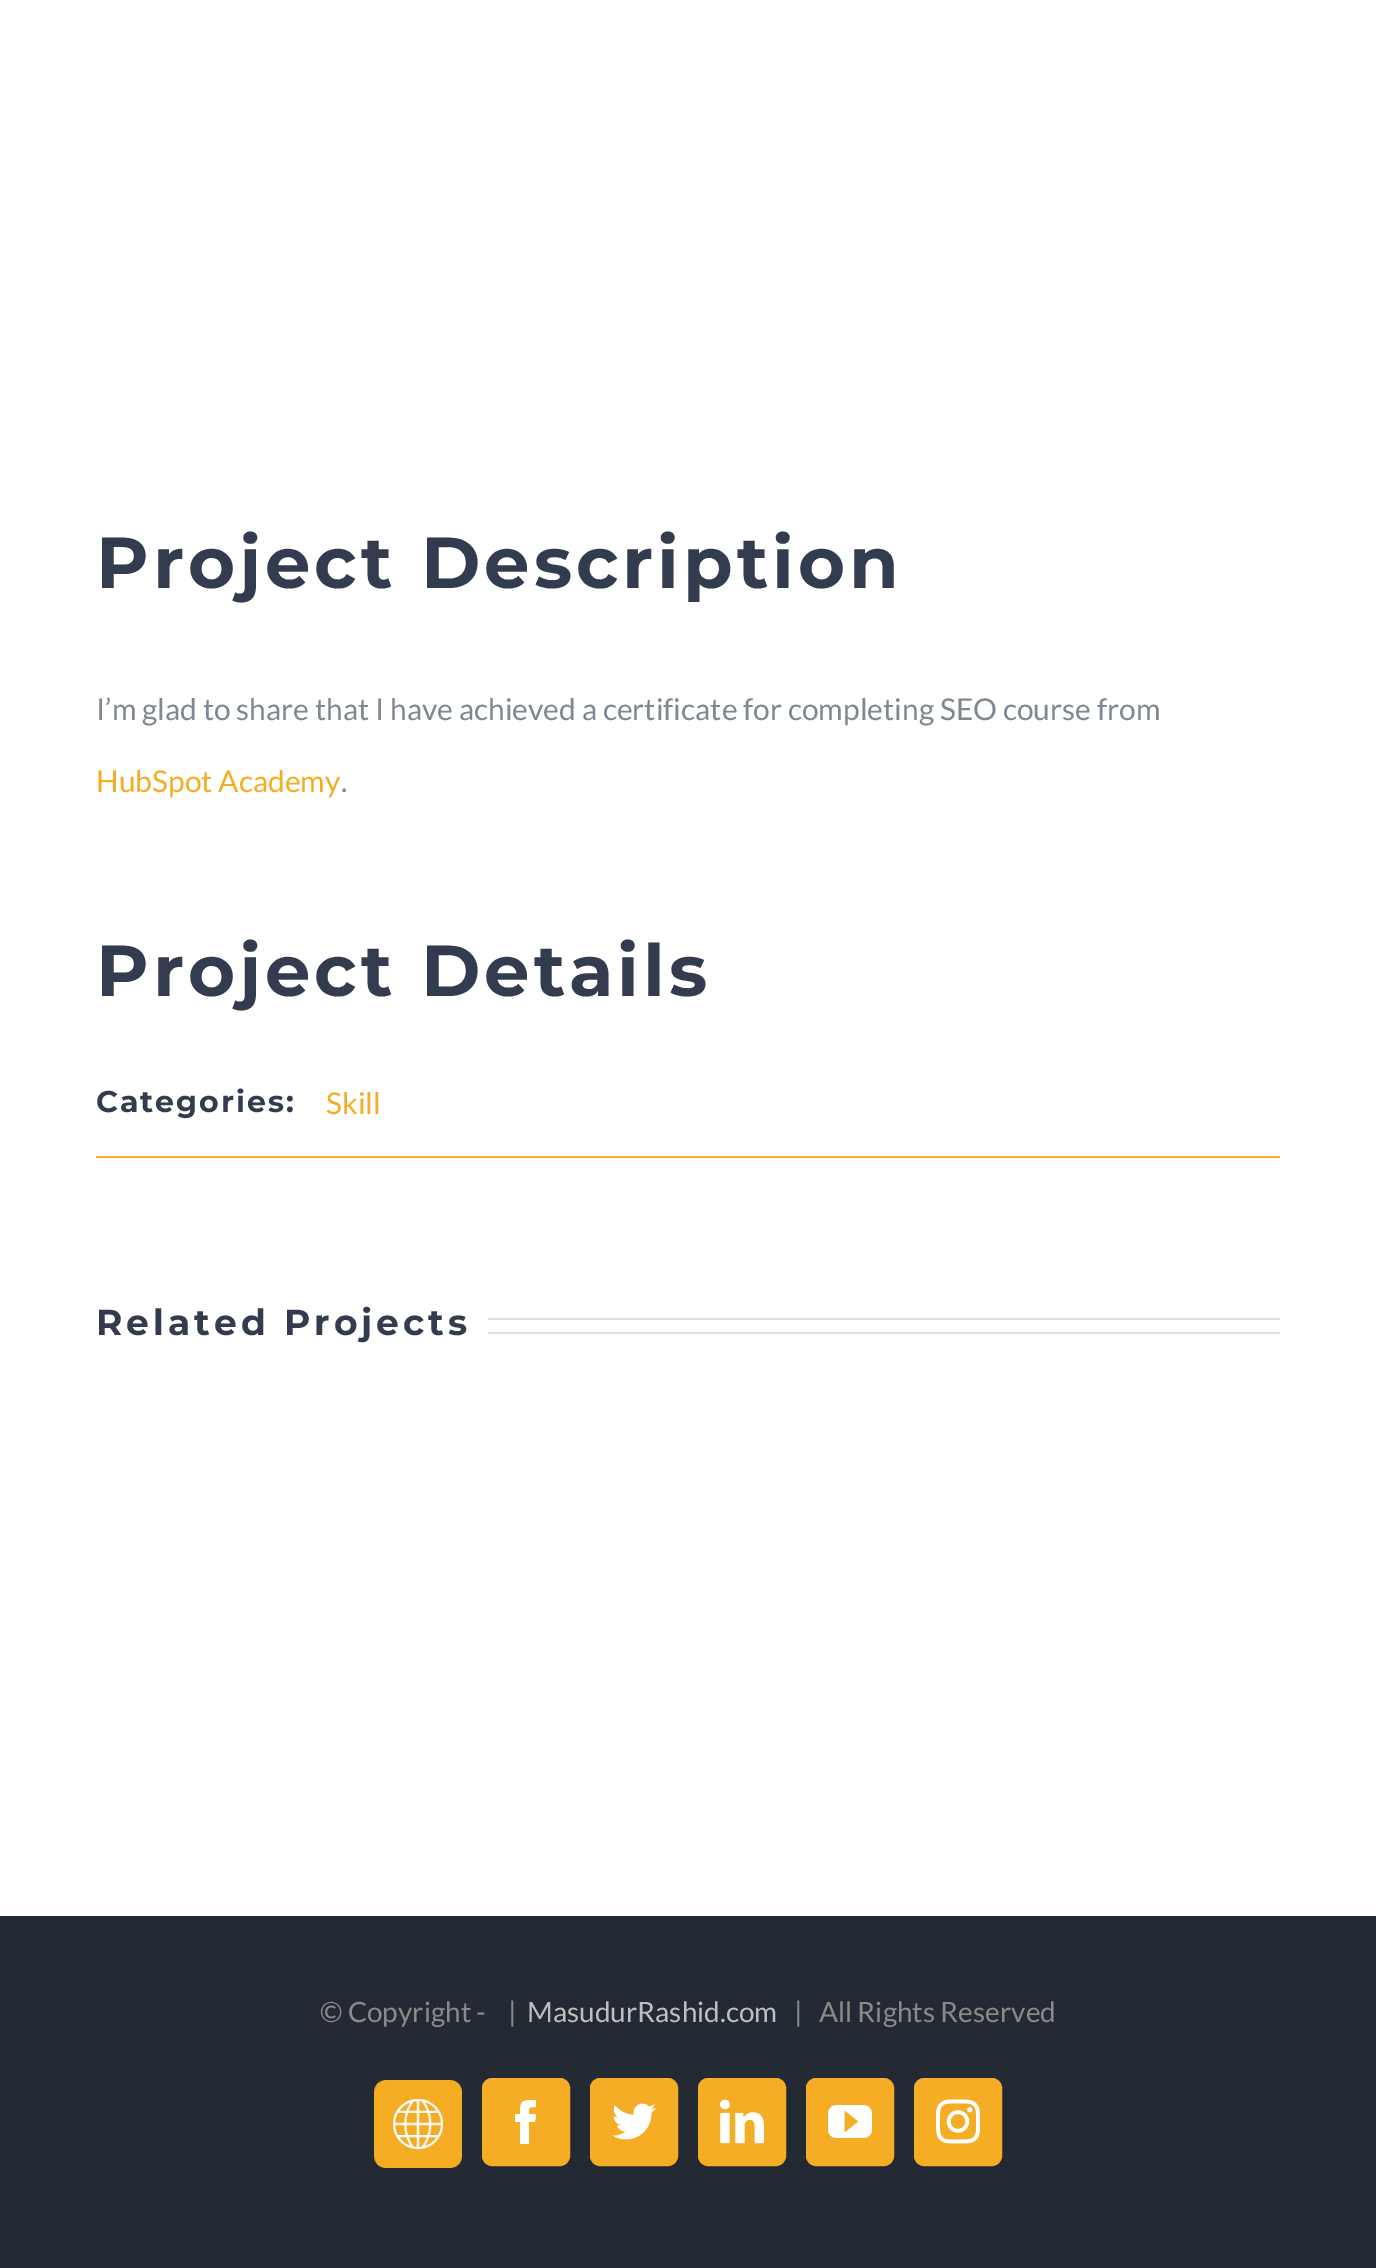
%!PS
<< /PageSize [1376 2268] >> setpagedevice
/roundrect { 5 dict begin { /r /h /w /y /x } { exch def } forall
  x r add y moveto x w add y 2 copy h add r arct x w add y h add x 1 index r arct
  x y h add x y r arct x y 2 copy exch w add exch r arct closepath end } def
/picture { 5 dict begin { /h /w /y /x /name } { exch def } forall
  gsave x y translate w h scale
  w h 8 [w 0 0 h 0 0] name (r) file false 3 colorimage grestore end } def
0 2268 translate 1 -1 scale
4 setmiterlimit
1 setgray
0 0 1376 2268 rectfill
/Montserrat-Bold [72 0 0 -72 0 0] selectfont
0.2 0.235 0.306 setrgbcolor
96 588 moveto 4 0 (Project Description) ashow
/Lato-Regular [30 0 0 -30 0 0] selectfont
0.494 0.533 0.565 setrgbcolor
96 720 moveto (I’m glad to share that I have achieved a certificate for completing SEO course from) show
0.957 0.678 0.141 setrgbcolor
96 792 moveto (HubSpot Academy) show
0.494 0.533 0.565 setrgbcolor
341 792 moveto (.) show
/Montserrat-Bold [72 0 0 -72 0 0] selectfont
0.2 0.235 0.306 setrgbcolor
96 996 moveto 4 0 (Project Details) ashow
0.957 0.678 0.141 setrgbcolor
96 1156 1184 2 rectfill
/Montserrat-Bold [30 0 0 -30 0 0] selectfont
0.2 0.235 0.306 setrgbcolor
96 1112 moveto 2 0 (Categories:) ashow
/Lato-Regular [30 0 0 -30 0 0] selectfont
0.957 0.678 0.141 setrgbcolor
326 1114 moveto (Skill) show
/Montserrat-Bold [36 0 0 -36 0 0] selectfont
0.2 0.235 0.306 setrgbcolor
96 1335 moveto 4 0 (Related Projects) ashow
0.878 0.871 0.871 setrgbcolor
488 1318 792 2 rectfill
488 1332 792 2 rectfill
0.137 0.165 0.204 setrgbcolor
0 1916 1376 352 rectfill
/Lato-Regular [28 0 0 -28 0 0] selectfont
0.549 0.537 0.537 setrgbcolor
320 2022 moveto (© Copyright -) show
508 2022 moveto (|) show
0.749 setgray
527 2022 moveto (MasudurRashid.com) show
0.549 0.537 0.537 setrgbcolor
794 2022 moveto (|   All Rights Reserved) show
(img1.rgb) 374 2080 88 88 picture
0.957 0.678 0.141 setrgbcolor
483 2079 86 86 9 roundrect gsave fill grestore
2 setlinewidth
stroke
1 setgray
newpath 529 2144 moveto 520 2144 lineto 520 2122 lineto 515 2122 lineto 515 2114 lineto 520 2114 lineto 520 2100 522 2100 536 2100 curveto 536 2107 lineto 528 2107 529 2107 529 2114 curveto 536 2114 lineto 535 2122 lineto 529 2122 lineto closepath fill
0.957 0.678 0.141 setrgbcolor
591 2079 86 86 9 roundrect gsave fill grestore
stroke
(img2.rgb) 612 2103 44 37 picture
699 2079 86 86 9 roundrect gsave fill grestore
stroke
(img3.rgb) 720 2099 44 45 picture
807 2079 86 86 9 roundrect gsave fill grestore
stroke
(img4.rgb) 828 2105 44 33 picture
915 2079 86 86 9 roundrect gsave fill grestore
stroke
(img5.rgb) 936 2099 44 45 picture
showpage
